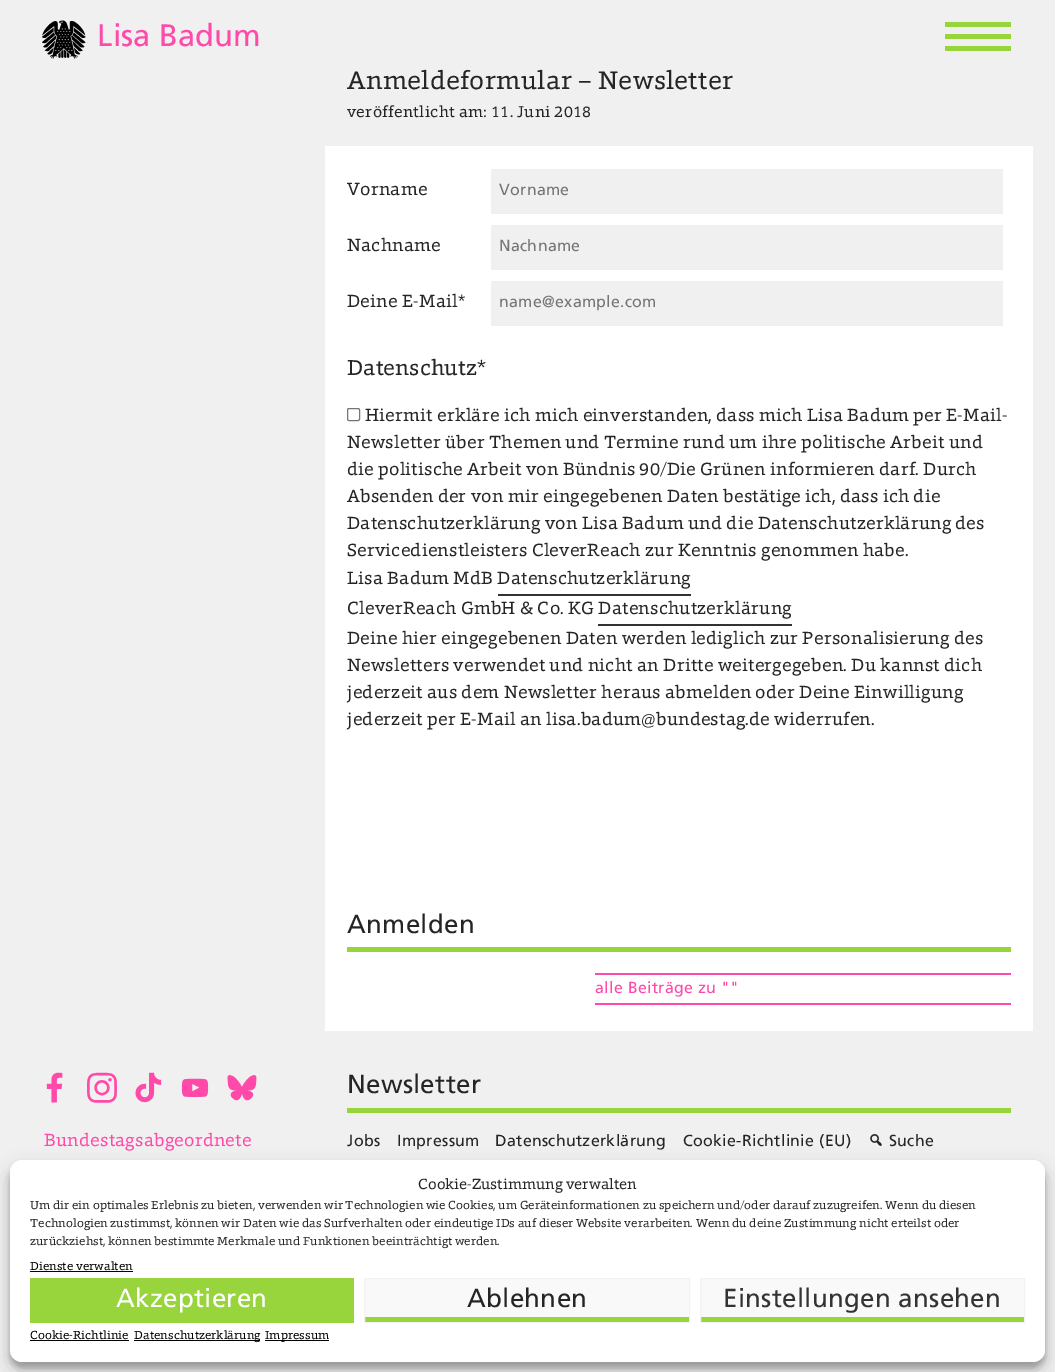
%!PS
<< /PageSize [1055 1372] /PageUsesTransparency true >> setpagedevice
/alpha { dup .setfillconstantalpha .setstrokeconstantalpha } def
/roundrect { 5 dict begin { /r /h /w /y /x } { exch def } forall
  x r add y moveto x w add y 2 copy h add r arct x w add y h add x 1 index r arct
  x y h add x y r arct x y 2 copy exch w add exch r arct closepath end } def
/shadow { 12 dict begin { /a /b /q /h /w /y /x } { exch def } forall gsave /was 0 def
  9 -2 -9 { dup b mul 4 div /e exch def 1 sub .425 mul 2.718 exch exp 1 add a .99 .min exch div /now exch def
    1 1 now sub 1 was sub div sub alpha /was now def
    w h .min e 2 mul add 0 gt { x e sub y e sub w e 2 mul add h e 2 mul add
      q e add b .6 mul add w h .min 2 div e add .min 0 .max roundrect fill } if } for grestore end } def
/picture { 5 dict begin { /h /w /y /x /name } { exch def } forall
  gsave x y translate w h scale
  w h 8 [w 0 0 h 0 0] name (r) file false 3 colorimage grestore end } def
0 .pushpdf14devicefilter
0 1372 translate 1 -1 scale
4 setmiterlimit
0.941 setgray
0 0 1055 1372 rectfill
(img1.rgb) 42 20 44 39 picture
/Frutiger-Regular [31 0 0 -31 0 0] selectfont
1 0.29 0.663 setrgbcolor
97 46 moveto (Lisa Badum) show
0.596 0.835 0.239 setrgbcolor
945 22 66 5 rectfill
945 34 66 5 rectfill
945 46 66 5 rectfill
/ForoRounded-Regular [26 0 0 -26 0 0] selectfont
0.145 setgray
347 89 moveto 0.25 0 (Anmeldeformular – Newsletter) ashow
/ForoRounded-Regular [16 0 0 -16 0 0] selectfont
347 117 moveto 0.3 0 (veröffentlicht am: 11. Juni 2018) ashow
1 setgray
325 146 708 885 rectfill
/ForoRounded-Regular [18 0 0 -18 0 0] selectfont
0.145 setgray
347 195 moveto 0.18 0 (Vorname) ashow
0.941 setgray
491 169 512 45 rectfill
/Frutiger-Regular [16 0 0 -16 0 0] selectfont
0.459 setgray
499 195 moveto 0.3 0 (Vorname) ashow
/ForoRounded-Regular [18 0 0 -18 0 0] selectfont
0.145 setgray
347 251 moveto 0.18 0 (Nachname) ashow
0.941 setgray
491 225 512 45 rectfill
/Frutiger-Regular [16 0 0 -16 0 0] selectfont
0.459 setgray
499 251 moveto 0.3 0 (Nachname) ashow
/ForoRounded-Regular [18 0 0 -18 0 0] selectfont
0.145 setgray
347 307 moveto 0.18 0 (Deine E-Mail*) ashow
0.941 setgray
491 281 512 45 rectfill
/Frutiger-Regular [16 0 0 -16 0 0] selectfont
0.459 setgray
499 307 moveto 0.3 0 (name@example.com) ashow
/ForoRounded-Regular [22 0 0 -22 0 0] selectfont
0.145 setgray
347 375 moveto (Datenschutz*) show
0.463 setgray
347.5 408.5 12 12 1.5 roundrect stroke
/ForoRounded-Regular [18 0 0 -18 0 0] selectfont
0.145 setgray
365 421 moveto 0.18 0 (Hiermit erkläre ich mich einverstanden, dass mich Lisa Badum per E-Mail-) ashow
347 448 moveto 0.18 0 (Newsletter über Themen und Termine rund um ihre politische Arbeit und) ashow
347 475 moveto 0.18 0 (die politische Arbeit von Bündnis 90/Die Grünen informieren darf. Durch) ashow
347 502 moveto 0.18 0 (Absenden der von mir eingegebenen Daten bestätige ich, dass ich die) ashow
347 529 moveto 0.18 0 (Datenschutzerklärung von Lisa Badum und die Datenschutzerklärung des) ashow
347 556 moveto 0.18 0 (Servicedienstleisters CleverReach zur Kenntnis genommen habe.) ashow
347 584 moveto 0.18 0 (Lisa Badum MdB Datenschutzerklärung) ashow
0.2 setgray
498 594 193 2 rectfill
0.145 setgray
347 614 moveto 0.18 0 (CleverReach GmbH & Co. KG Datenschutzerklärung) ashow
0.2 setgray
598 624 194 2 rectfill
0.145 setgray
347 644 moveto 0.18 0 (Deine hier eingegebenen Daten werden lediglich zur Personalisierung des) ashow
347 671 moveto 0.18 0 (Newsletters verwendet und nicht an Dritte weitergegeben. Du kannst dich) ashow
347 698 moveto 0.18 0 (jederzeit aus dem Newsletter heraus abmelden oder Deine Einwilligung) ashow
347 725 moveto 0.18 0 (jederzeit per E-Mail an lisa.badum@bundestag.de widerrufen.) ashow
0.596 0.835 0.239 setrgbcolor
347 947 664 5 rectfill
/Frutiger-Regular [26 0 0 -26 0 0] selectfont
0.145 setgray
347 933 moveto 0.25 0 (Anmelden) ashow
1 0.29 0.663 setrgbcolor
595 973 416 2 rectfill
/Frutiger-Regular [16 0 0 -16 0 0] selectfont
595 993 moveto 0.3 0 (alle Beiträge zu "") ashow
595 1003 416 2 rectfill
(img2.rgb) 46 1072 17 31 picture
(img3.rgb) 87 1072 30 31 picture
(img4.rgb) 135 1072 27 31 picture
(img5.rgb) 181 1078 28 19 picture
(img6.rgb) 227 1075 30 26 picture
/ForoRounded-Regular [18 0 0 -18 0 0] selectfont
44 1146 moveto 0.18 0 (Bundestagsabgeordnete) ashow
0.596 0.835 0.239 setrgbcolor
347 1108 664 5 rectfill
/Frutiger-Regular [26 0 0 -26 0 0] selectfont
0.145 setgray
347 1093 moveto 0.25 0 (Newsletter) ashow
/Frutiger-Regular [16 0 0 -16 0 0] selectfont
347 1146 moveto 0.3 0 (Jobs) ashow
397 1146 moveto 0.3 0 (Impressum) ashow
495 1146 moveto 0.3 0 (Datenschutzerklärung) ashow
683 1146 moveto 0.3 0 (Cookie-Richtlinie \(EU\)) ashow
(img7.rgb) 870 1134 12 12 picture
889 1146 moveto 0.3 0 (Suche) ashow
0 setgray
10 1166 1035 202 12 3 0.23 shadow
10 1170 1035 202 12 10 0.19 shadow
1 setgray
10 1160 1035 202 12 roundrect fill
/ForoRounded-Regular [15 0 0 -15 0 0] selectfont
0.145 setgray
418 1189 moveto (Cookie-Zustimmung verwalten) show
/ForoRounded-Regular [12 0 0 -12 0 0] selectfont
30 1209 moveto (Um dir ein optimales Erlebnis zu bieten, verwenden wir Technologien wie Cookies, um Geräteinformationen zu speichern und/oder darauf zuzugreifen. Wenn du diesen) show
30 1227 moveto (Technologien zustimmst, können wir Daten wie das Surfverhalten oder eindeutige IDs auf dieser Website verarbeiten. Wenn du deine Zustimmung nicht erteilst oder) show
30 1245 moveto (zurückziehst, können bestimmte Merkmale und Funktionen beeinträchtigt werden.) show
0 setgray
30 1270 moveto (Dienste verwalten) show
30 1271 103 1 rectfill
0.596 0.835 0.239 setrgbcolor
30 1278 324 45 rectfill
/Frutiger-Regular [26 0 0 -26 0 0] selectfont
1 setgray
116 1307 moveto 0.25 0 (Akzeptieren) ashow
0.976 setgray
365 1279 324 38 rectfill
0.596 0.835 0.239 setrgbcolor
365 1317 324 5 rectfill
0.949 setgray
364.5 1278.5 325 44 rectstroke
0.145 setgray
467 1307 moveto 0.25 0 (Ablehnen) ashow
0.976 setgray
701 1279 323 38 rectfill
0.596 0.835 0.239 setrgbcolor
701 1317 323 5 rectfill
0.949 setgray
700.5 1278.5 324 44 rectstroke
0.2 setgray
723 1307 moveto 0.25 0 (Einstellungen ansehen) ashow
/ForoRounded-Regular [12 0 0 -12 0 0] selectfont
0 setgray
30 1339 moveto (Cookie-Richtlinie) show
30 1340 99 1 rectfill
134 1340 126 1 rectfill
134 1339 moveto (Datenschutzerklärung) show
265 1340 64 1 rectfill
265 1339 moveto (Impressum) show
.poppdf14devicefilter showpage
